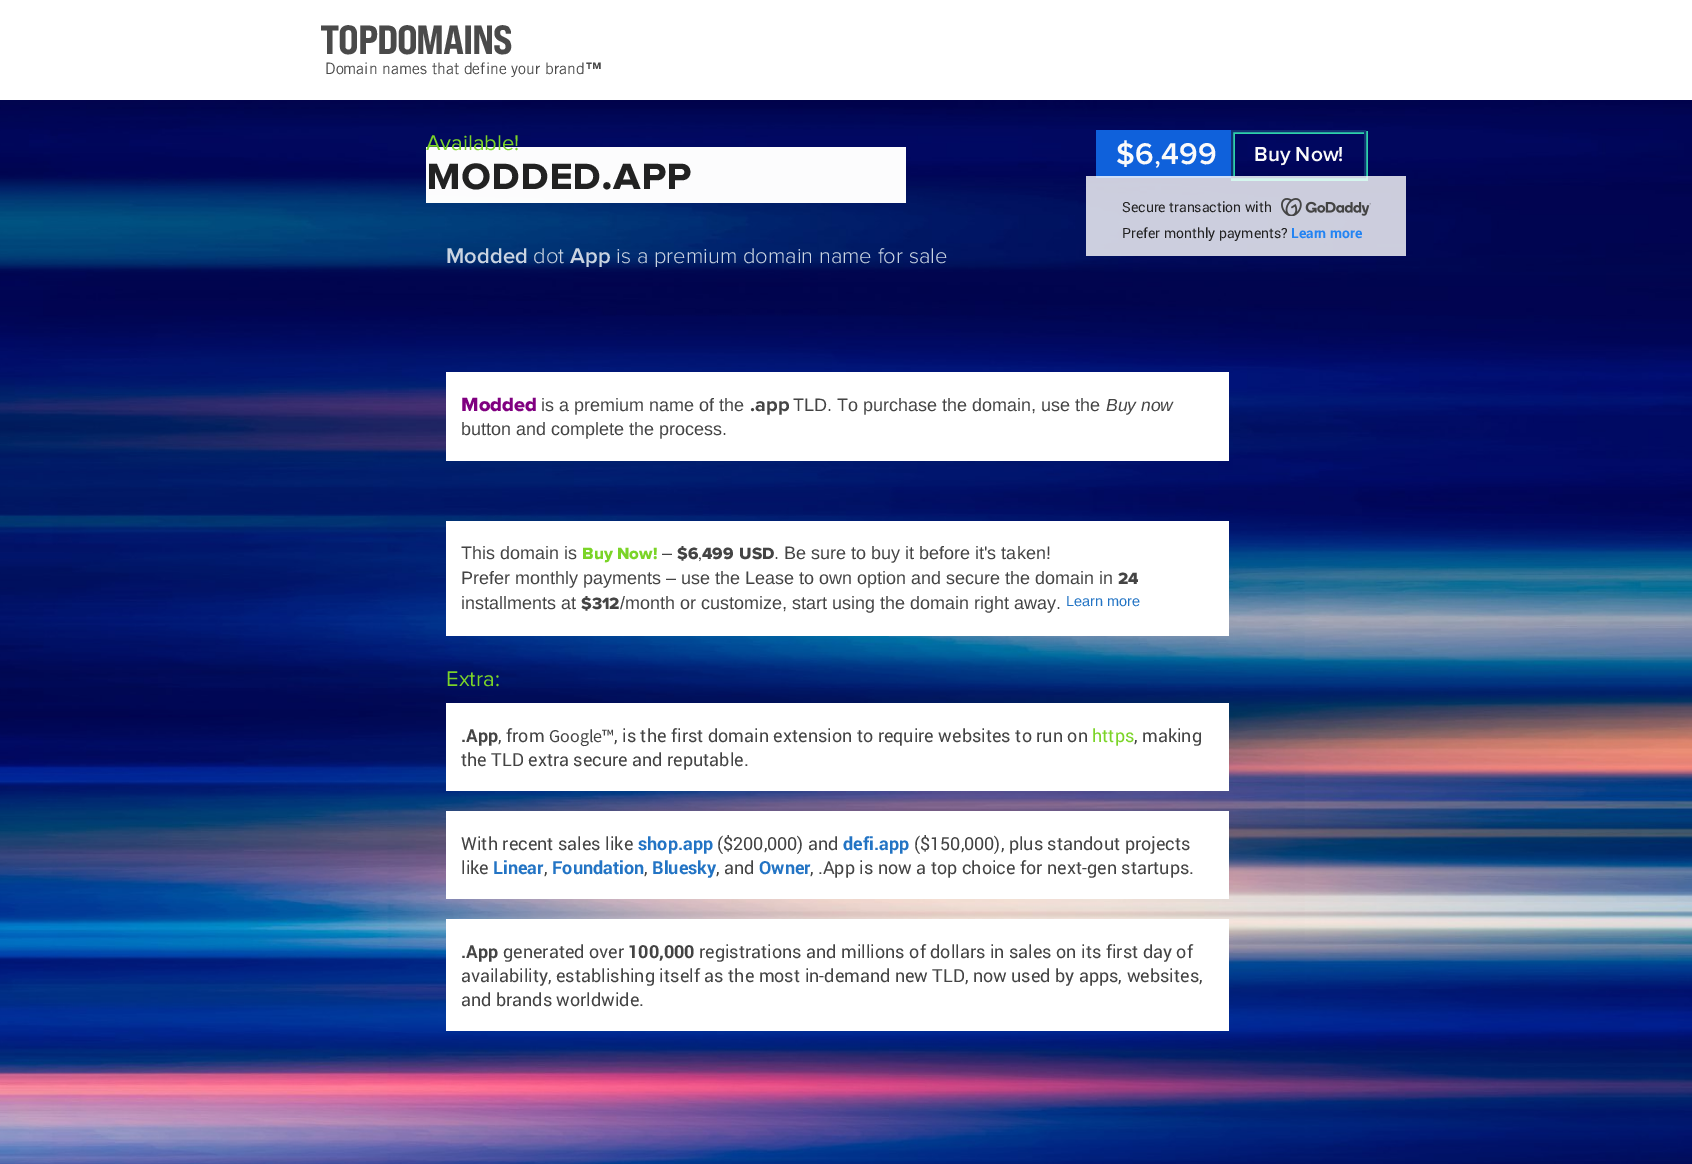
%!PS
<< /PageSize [1692 1164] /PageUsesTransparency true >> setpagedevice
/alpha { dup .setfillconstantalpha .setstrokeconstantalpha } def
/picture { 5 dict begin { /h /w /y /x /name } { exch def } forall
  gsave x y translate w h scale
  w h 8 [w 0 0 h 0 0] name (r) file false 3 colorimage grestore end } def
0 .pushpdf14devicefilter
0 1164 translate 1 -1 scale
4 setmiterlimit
1 setgray
0 0 1692 1164 rectfill
/BebasNeue-ExtraBold [40.75 0 0 -40.75 0 0] selectfont
0.29 setgray
320 54 moveto -1.25 0 (TOPDOMAINS) ashow
/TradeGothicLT-Regular [15.75 0 0 -15.75 0 0] selectfont
325 74 moveto (Domain names that define your brand) show
/TradeGothicLT-Bold [15.75 0 0 -15.75 0 0] selectfont
586 74 moveto (™) show
(img1.rgb) 0 100 1692 1064 picture
0.99 alpha
1 setgray
426 147 480 56 rectfill
/ProximaNova-Regular [22 0 0 -22 0 0] selectfont
1 alpha
0.482 0.831 0.157 setrgbcolor
426 150 moveto (Available!) show
/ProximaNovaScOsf-Bold [46 0 0 -46 0 0] selectfont
0.133 setgray
426 189 moveto (modded.app) show
/ProximaNova-SemiBold [22 0 0 -22 0 0] selectfont
0.792 0.831 0.882 setrgbcolor
446 263 moveto (Modded) show
/ProximaNova-Light [22 0 0 -22 0 0] selectfont
533 263 moveto (dot) show
/ProximaNova-SemiBold [22 0 0 -22 0 0] selectfont
570 263 moveto (App) show
/ProximaNova-Light [22 0 0 -22 0 0] selectfont
616 263 moveto (is a premium domain name for sale) show
0.059 0.38 0.859 setrgbcolor
1096 130 135 48 rectfill
/ProximaNova-SemiBold [31 0 0 -31 0 0] selectfont
0.98 setgray
1116 164 moveto ($6) show
/ProximaNova-Regular [31 0 0 -31 0 0] selectfont
1154 164 moveto (,) show
/ProximaNova-SemiBold [31 0 0 -31 0 0] selectfont
1161 164 moveto (499) show
0.18 0.82 0.671 setrgbcolor
newpath 1231 178 moveto 1231 181 lineto 1368 181 lineto 1368 131 lineto 1366 131 lineto 1366 178 lineto closepath fill
gsave
1233 132 131 44 rectclip
newpath 1134 33 moveto 1463 33 lineto 1463 275 lineto 1134 275 lineto closepath 1235 134 moveto 1364 134 lineto 1364 176 lineto 1235 176 lineto closepath eofill
grestore
0.067 0.196 0.451 setrgbcolor
2 setlinewidth
1232 131 133 46 rectstroke
0.8 alpha
1 setgray
1086 176 320 80 rectfill
/Roboto-Regular [14 0 0 -14 0 0] selectfont
1 alpha
0.133 setgray
1122 212 moveto (Secure transaction with) show
(img2.rgb) 1281 198 90 18 picture
1122 238 moveto (Prefer monthly payments?) show
/Roboto-Bold [14 0 0 -14 0 0] selectfont
0.141 0.518 0.949 setrgbcolor
1291 238 moveto (Learn more) show
/ProximaNova-SemiBold [21 0 0 -21 0 0] selectfont
0.98 setgray
1254 161 moveto (Buy Now!) show
1 setgray
446 372 783 89 rectfill
/ProximaNova-ExtraBold [20 0 0 -20 0 0] selectfont
0.502 0 0.502 setrgbcolor
461 411 moveto (Modded) show
/LiberationSans-Regular [18 0 0 -18 0 0] selectfont
0.267 setgray
541 411 moveto (is a premium name of the) show
/ProximaNova-Bold [20 0 0 -20 0 0] selectfont
750 411 moveto (.app) show
/LiberationSans-Regular [18 0 0 -18 0 0] selectfont
793 411 moveto (TLD. To purchase the domain, use the) show
/LiberationSans-Italic [17.5 0 0 -17.5 0 0] selectfont
1106 411 moveto (Buy now) show
/LiberationSans-Regular [18 0 0 -18 0 0] selectfont
461 435 moveto (button and complete the process.) show
1 setgray
446 521 783 115 rectfill
0.267 setgray
461 559 moveto (This domain is) show
/ProximaNova-ExtraBold [17 0 0 -17 0 0] selectfont
0.482 0.831 0.157 setrgbcolor
582 559 moveto (Buy Now!) show
/LiberationSans-Regular [18 0 0 -18 0 0] selectfont
0.267 setgray
662 559 moveto (–) show
/ProximaNova-ExtraBold [17 0 0 -17 0 0] selectfont
677 559 moveto ($6) show
702 559 moveto (499) show
739 559 moveto (USD) show
/LiberationSans-Regular [18 0 0 -18 0 0] selectfont
774 559 moveto (. Be sure to buy it before it's taken!) show
/ProximaNova-Regular [17 0 0 -17 0 0] selectfont
698 559 moveto (,) show
/LiberationSans-Regular [18 0 0 -18 0 0] selectfont
461 584 moveto (Prefer monthly payments – use the Lease to own option and secure the domain in) show
/ProximaNova-ExtraBold [17 0 0 -17 0 0] selectfont
1118 584 moveto (24) show
/LiberationSans-Regular [18 0 0 -18 0 0] selectfont
461 609 moveto (installments at) show
/ProximaNova-ExtraBold [17 0 0 -17 0 0] selectfont
581 609 moveto ($312) show
/LiberationSans-Regular [18 0 0 -18 0 0] selectfont
620 609 moveto (/month or customize, start using the domain right away.) show
/LiberationSans-Regular [14.5 0 0 -14.5 0 0] selectfont
0.137 0.455 0.769 setrgbcolor
1066 606 moveto (Learn more) show
/ProximaNova-Regular [22 0 0 -22 0 0] selectfont
0.482 0.831 0.157 setrgbcolor
446 686 moveto (Extra:) show
1 setgray
446 703 783 88 rectfill
/Roboto-Bold [18 0 0 -18 0 0] selectfont
0.267 setgray
461 742 moveto (.App) show
/Roboto-Regular [18 0 0 -18 0 0] selectfont
498 742 moveto (, from) show
/SourceSansPro-Regular [18 0 0 -18 0 0] selectfont
549 742 moveto (Google™) show
/Roboto-Regular [18 0 0 -18 0 0] selectfont
614 742 moveto (, is the first domain extension to require websites to run on) show
0.482 0.831 0.157 setrgbcolor
1092 742 moveto (https) show
0.267 setgray
1134 742 moveto (, making) show
461 766 moveto (the TLD extra secure and reputable.) show
1 setgray
446 811 783 88 rectfill
0.267 setgray
461 850 moveto (With recent sales like) show
/Roboto-Bold [18 0 0 -18 0 0] selectfont
0.137 0.455 0.769 setrgbcolor
638 850 moveto (shop.app) show
/Roboto-Regular [18 0 0 -18 0 0] selectfont
0.267 setgray
717 850 moveto (\($200,000\) and) show
/Roboto-Bold [18 0 0 -18 0 0] selectfont
0.137 0.455 0.769 setrgbcolor
843 850 moveto (defi.app) show
/Roboto-Regular [18 0 0 -18 0 0] selectfont
0.267 setgray
914 850 moveto (\($150,000\), plus standout projects) show
461 874 moveto (like) show
/Roboto-Bold [18 0 0 -18 0 0] selectfont
0.137 0.455 0.769 setrgbcolor
493 874 moveto (Linear) show
/Roboto-Regular [18 0 0 -18 0 0] selectfont
0.267 setgray
544 874 moveto (,) show
/Roboto-Bold [18 0 0 -18 0 0] selectfont
0.137 0.455 0.769 setrgbcolor
552 874 moveto (Foundation) show
/Roboto-Regular [18 0 0 -18 0 0] selectfont
0.267 setgray
644 874 moveto (,) show
/Roboto-Bold [18 0 0 -18 0 0] selectfont
0.137 0.455 0.769 setrgbcolor
652 874 moveto (Bluesky) show
/Roboto-Regular [18 0 0 -18 0 0] selectfont
0.267 setgray
716 874 moveto (, and) show
/Roboto-Bold [18 0 0 -18 0 0] selectfont
0.137 0.455 0.769 setrgbcolor
759 874 moveto (Owner) show
/Roboto-Regular [18 0 0 -18 0 0] selectfont
0.267 setgray
810 874 moveto (, .App is now a top choice for next-gen startups.) show
1 setgray
446 919 783 112 rectfill
/Roboto-Bold [18 0 0 -18 0 0] selectfont
0.267 setgray
461 958 moveto (.App) show
/Roboto-Regular [18 0 0 -18 0 0] selectfont
503 958 moveto (generated over) show
/Roboto-Bold [18 0 0 -18 0 0] selectfont
628 958 moveto (100,000) show
/Roboto-Regular [18 0 0 -18 0 0] selectfont
699 958 moveto (registrations and millions of dollars in sales on its first day of) show
461 982 moveto (availability, establishing itself as the most in-demand new TLD, now used by apps, websites,) show
461 1006 moveto (and brands worldwide.) show
.poppdf14devicefilter showpage
